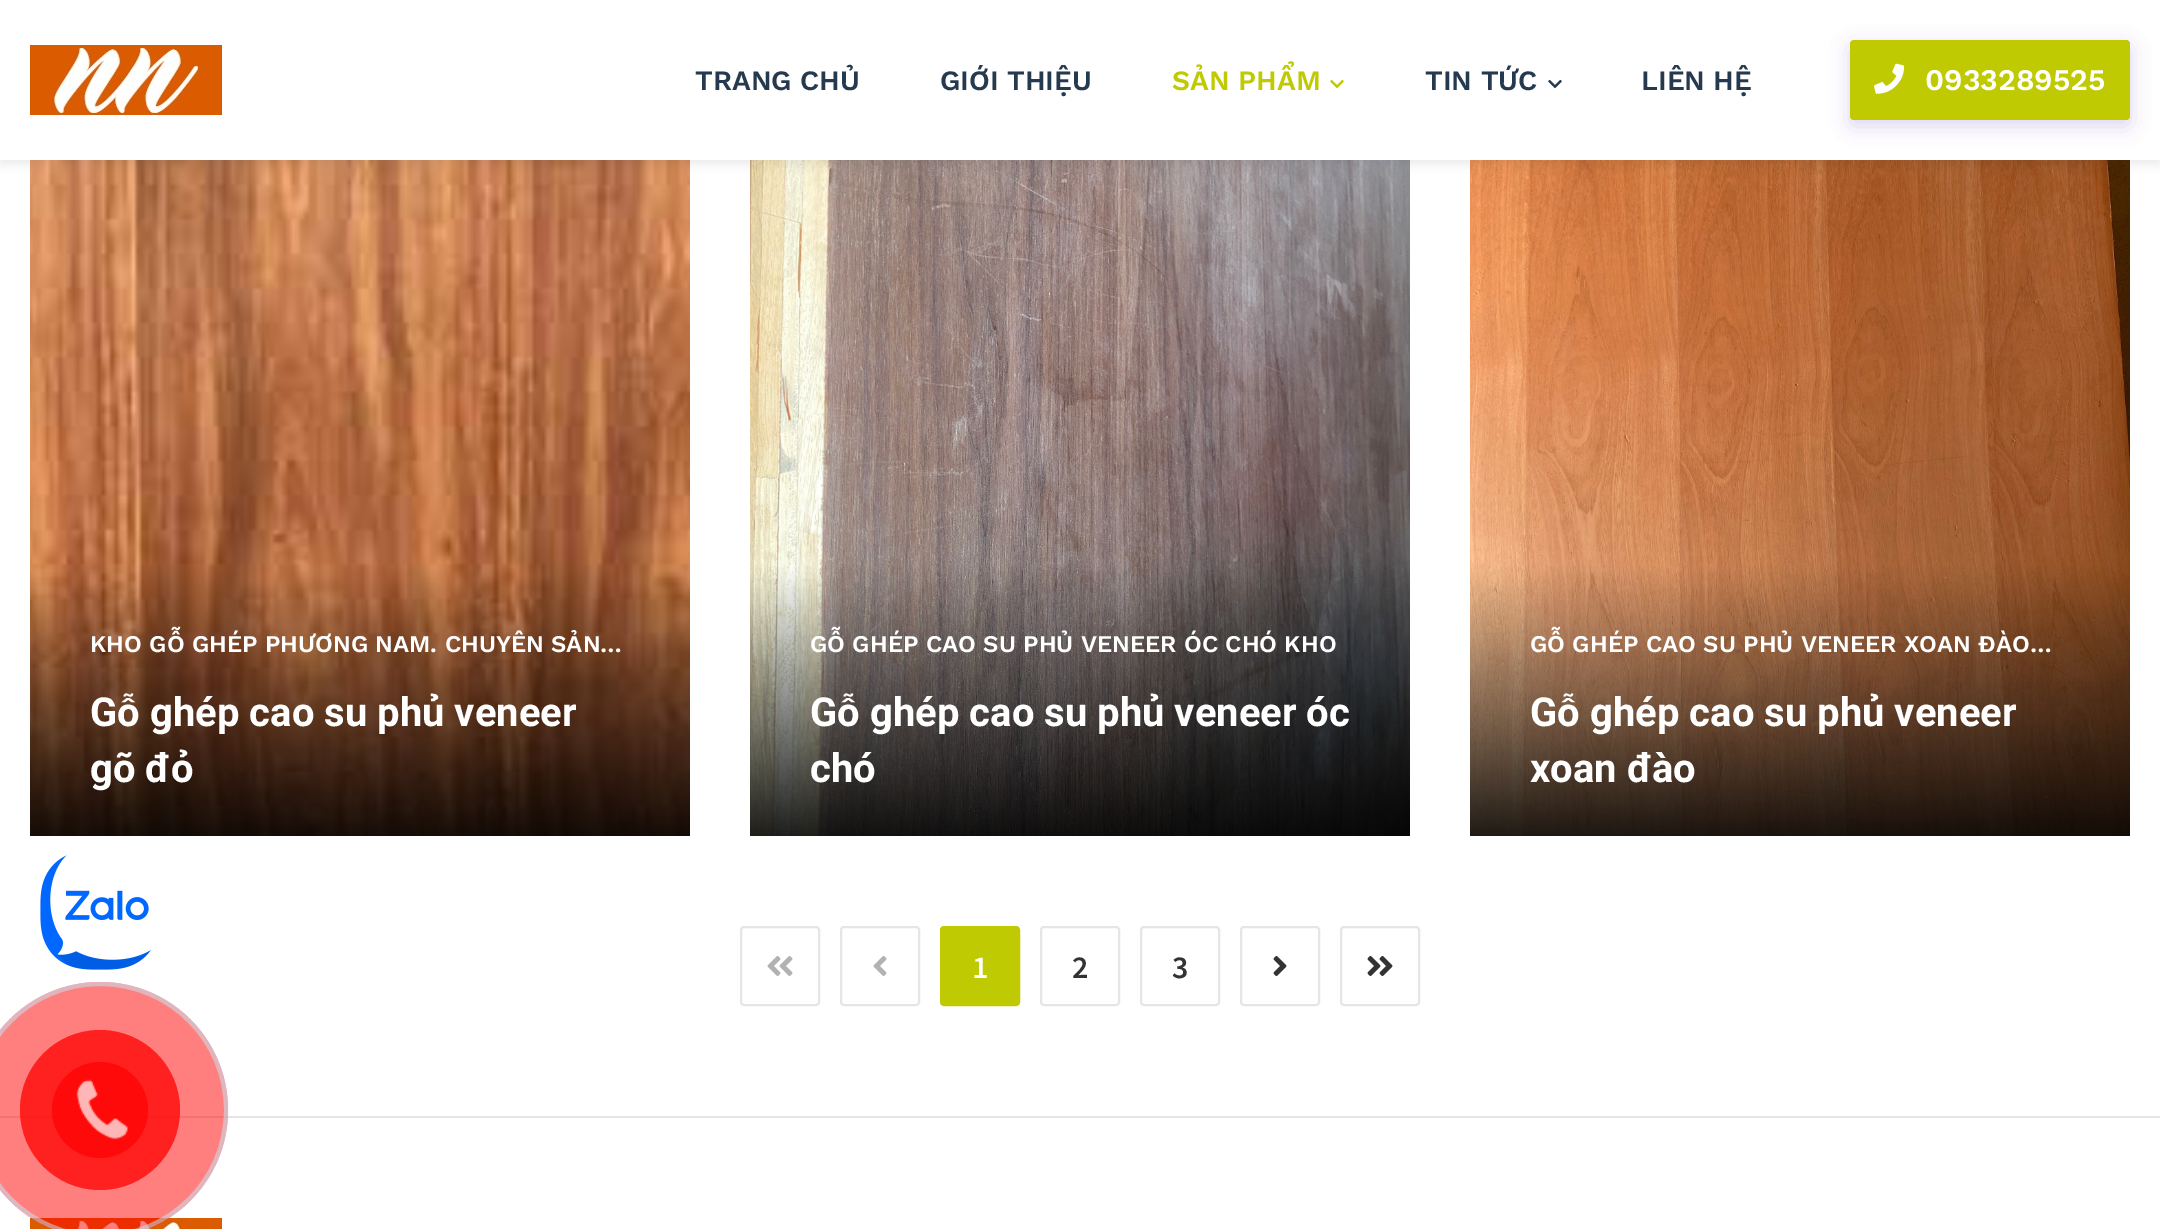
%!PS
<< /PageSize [2160 1229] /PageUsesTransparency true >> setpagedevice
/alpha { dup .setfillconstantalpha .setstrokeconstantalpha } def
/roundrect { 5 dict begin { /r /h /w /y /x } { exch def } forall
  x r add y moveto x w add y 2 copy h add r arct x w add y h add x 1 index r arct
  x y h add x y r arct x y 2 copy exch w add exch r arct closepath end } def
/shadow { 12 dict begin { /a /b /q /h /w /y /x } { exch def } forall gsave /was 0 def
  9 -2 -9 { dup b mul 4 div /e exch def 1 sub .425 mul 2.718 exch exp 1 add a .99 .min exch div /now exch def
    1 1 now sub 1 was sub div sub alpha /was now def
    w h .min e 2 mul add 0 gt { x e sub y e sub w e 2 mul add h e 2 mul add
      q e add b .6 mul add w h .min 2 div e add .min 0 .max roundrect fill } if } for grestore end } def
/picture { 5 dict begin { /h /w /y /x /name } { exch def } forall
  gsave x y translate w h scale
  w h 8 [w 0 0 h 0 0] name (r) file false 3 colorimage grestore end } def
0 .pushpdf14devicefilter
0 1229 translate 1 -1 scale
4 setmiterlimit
1 setgray
0 0 2160 1229 rectfill
(img5.rgb) 30 160 660 676 picture
(img6.rgb) 750 160 660 676 picture
(img7.rgb) 1470 160 660 676 picture
0.063 setgray
0 4 2160 160 0 5 0.08 shadow
1 setgray
0 0 2160 160 rectfill
(img1.rgb) 30 45 192 70 picture
/WorkSans-SemiBold [28 0 0 -28 0 0] selectfont
0.149 0.227 0.31 setrgbcolor
695 90 moveto (TRANG CHỦ) show
940 90 moveto (GIỚI THIỆU) show
0.749 0.792 0.008 setrgbcolor
1172 90 moveto (SẢN PHẨM) show
(img2.rgb) 1330 79 14 10 picture
0.149 0.227 0.31 setrgbcolor
1425 90 moveto (TIN TỨC) show
(img3.rgb) 1548 79 14 10 picture
1641 90 moveto (LIÊN HỆ) show
0.278 0.173 0.678 setrgbcolor
1850 46 280 80 4 10 0.2 shadow
0.749 0.792 0.008 setrgbcolor
1850 40 280 80 4 roundrect fill
(img4.rgb) 1874 63 31 31 picture
/WorkSans-SemiBold [30 0 0 -30 0 0] selectfont
1 setgray
1925 90 moveto (0933289525) show
/WorkSans-SemiBold [24 0 0 -24 0 0] selectfont
90 652 moveto (KHO GỖ GHÉP PHƯƠNG NAM. CHUYÊN SẢN…) show
/Roboto-Bold [40 0 0 -40 0 0] selectfont
90 726 moveto (Gỗ ghép cao su phủ veneer) show
90 782 moveto (gõ đỏ) show
/WorkSans-SemiBold [24 0 0 -24 0 0] selectfont
810 652 moveto (GỖ GHÉP CAO SU PHỦ VENEER ÓC CHÓ KHO) show
/Roboto-Bold [40 0 0 -40 0 0] selectfont
810 726 moveto (Gỗ ghép cao su phủ veneer óc) show
810 782 moveto (chó) show
/WorkSans-SemiBold [24 0 0 -24 0 0] selectfont
1530 652 moveto (GỖ GHÉP CAO SU PHỦ VENEER XOAN ĐÀO…) show
/Roboto-Bold [40 0 0 -40 0 0] selectfont
1530 726 moveto (Gỗ ghép cao su phủ veneer) show
1530 782 moveto (xoan đào) show
0.898 setgray
2 setlinewidth
741 927 78 78 3 roundrect stroke
(img8.rgb) 767 956 26 20 picture
841 927 78 78 3 roundrect stroke
(img9.rgb) 873 956 14 20 picture
0.749 0.792 0.008 setrgbcolor
941 927 78 78 3 roundrect gsave fill grestore
stroke
/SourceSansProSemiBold-SemiBold [32 0 0 -32 0 0] selectfont
1 setgray
972 978 moveto (1) show
0.898 setgray
1041 927 78 78 3 roundrect stroke
0.2 setgray
1072 978 moveto (2) show
0.898 setgray
1141 927 78 78 3 roundrect stroke
0.2 setgray
1172 978 moveto (3) show
0.898 setgray
1241 927 78 78 3 roundrect stroke
(img10.rgb) 1273 956 14 20 picture
1341 927 78 78 3 roundrect stroke
(img11.rgb) 1367 956 26 20 picture
(img12.rgb) 40 855 111 115 picture
0 1116 2160 2 rectfill
(img14.rgb) 30 1218 192 11 picture
0.5 alpha
1 0 0 setrgbcolor
newpath 100 1110 128 0 360 arc closepath fill
0.749 0.922 0.988 setrgbcolor
4 setlinewidth
newpath 100 1110 126 0 360 arc closepath stroke
0.75 alpha
1 0 0 setrgbcolor
newpath 100 1110 80 0 360 arc closepath fill
0.7 alpha
newpath 100 1110 48 0 360 arc closepath fill
1 alpha
(img13.rgb) 76 1079 52 61 picture
.poppdf14devicefilter showpage
